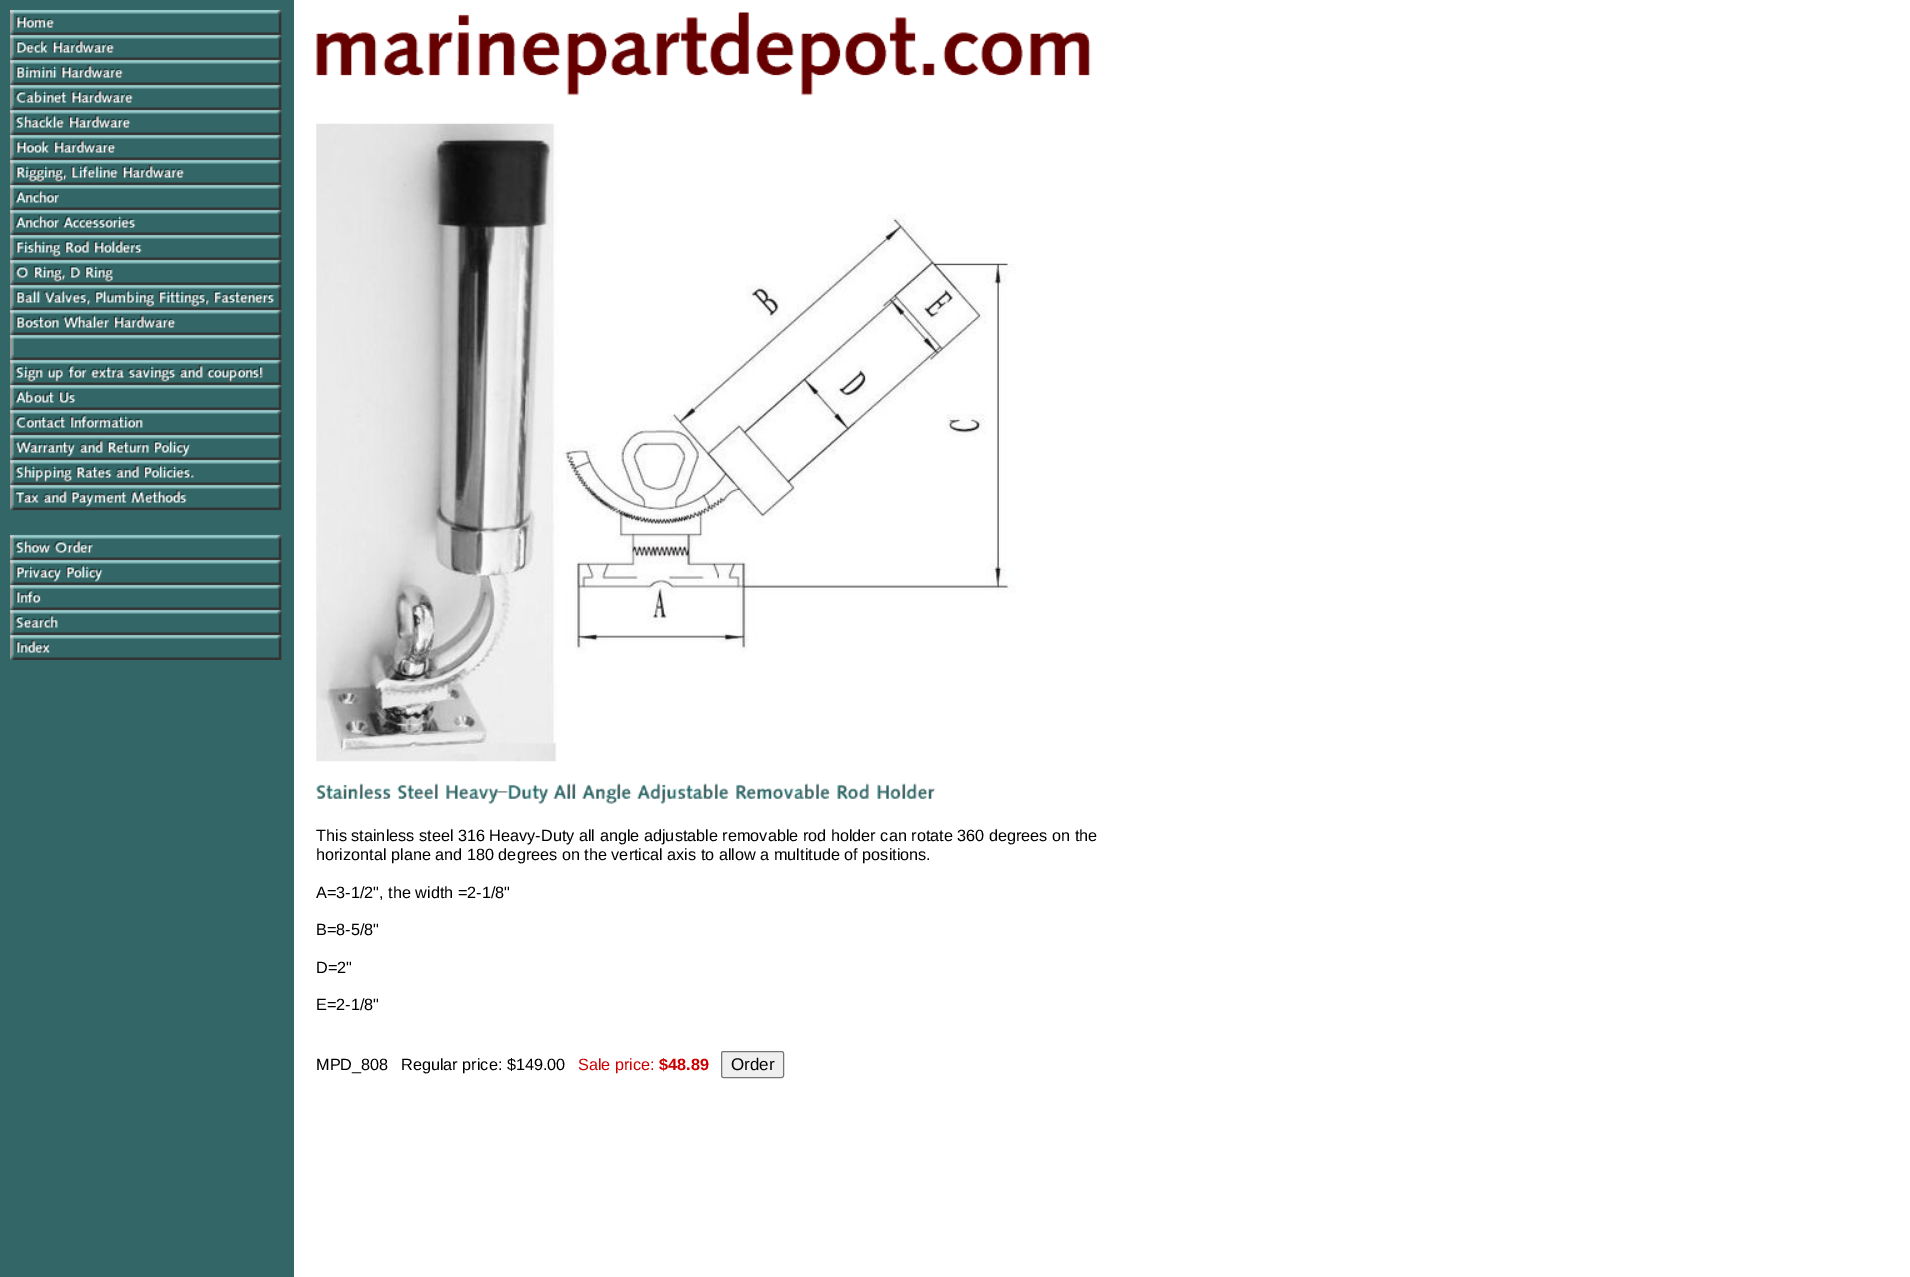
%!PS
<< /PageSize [1910 1277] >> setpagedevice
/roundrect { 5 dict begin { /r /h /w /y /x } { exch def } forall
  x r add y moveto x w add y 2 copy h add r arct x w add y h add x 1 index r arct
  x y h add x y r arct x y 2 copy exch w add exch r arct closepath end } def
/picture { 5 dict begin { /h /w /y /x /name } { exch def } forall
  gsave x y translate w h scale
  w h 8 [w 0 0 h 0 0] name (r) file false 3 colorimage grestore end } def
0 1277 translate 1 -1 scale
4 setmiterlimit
1 setgray
0 0 1910 1277 rectfill
0.2 0.4 0.4 setrgbcolor
0 0 294 1277 rectfill
(img1.rgb) 10 10 272 650 picture
(img2.rgb) 316 12 775 84 picture
(img3.rgb) 316 123 700 639 picture
(img4.rgb) 316 783 620 21 picture
/LiberationSans-Regular [16.25 0 0 -16.25 0 0] selectfont
0 setgray
316 841 moveto (This stainless steel 316 Heavy-Duty all angle adjustable removable rod holder can rotate 360 degrees on the) show
316 860 moveto (horizontal plane and 180 degrees on the vertical axis to allow a multitude of positions.) show
316 898 moveto (A=3-1/2", the width =2-1/8") show
316 935 moveto (B=8-5/8") show
316 973 moveto (D=2") show
316 1010 moveto (E=2-1/8") show
316 1070 moveto (MPD_808) show
401 1070 moveto (Regular price: $149.00) show
0.8 0 0 setrgbcolor
578 1070 moveto (Sale price:) show
/LiberationSans-Bold [16.25 0 0 -16.25 0 0] selectfont
659 1070 moveto ($48.89) show
0.937 setgray
721.5 1051.5 62 26 2 roundrect gsave fill grestore
0.463 setgray
stroke
/LiberationSans-Regular [17 0 0 -17 0 0] selectfont
0 setgray
731 1070 moveto (Order) show
showpage
